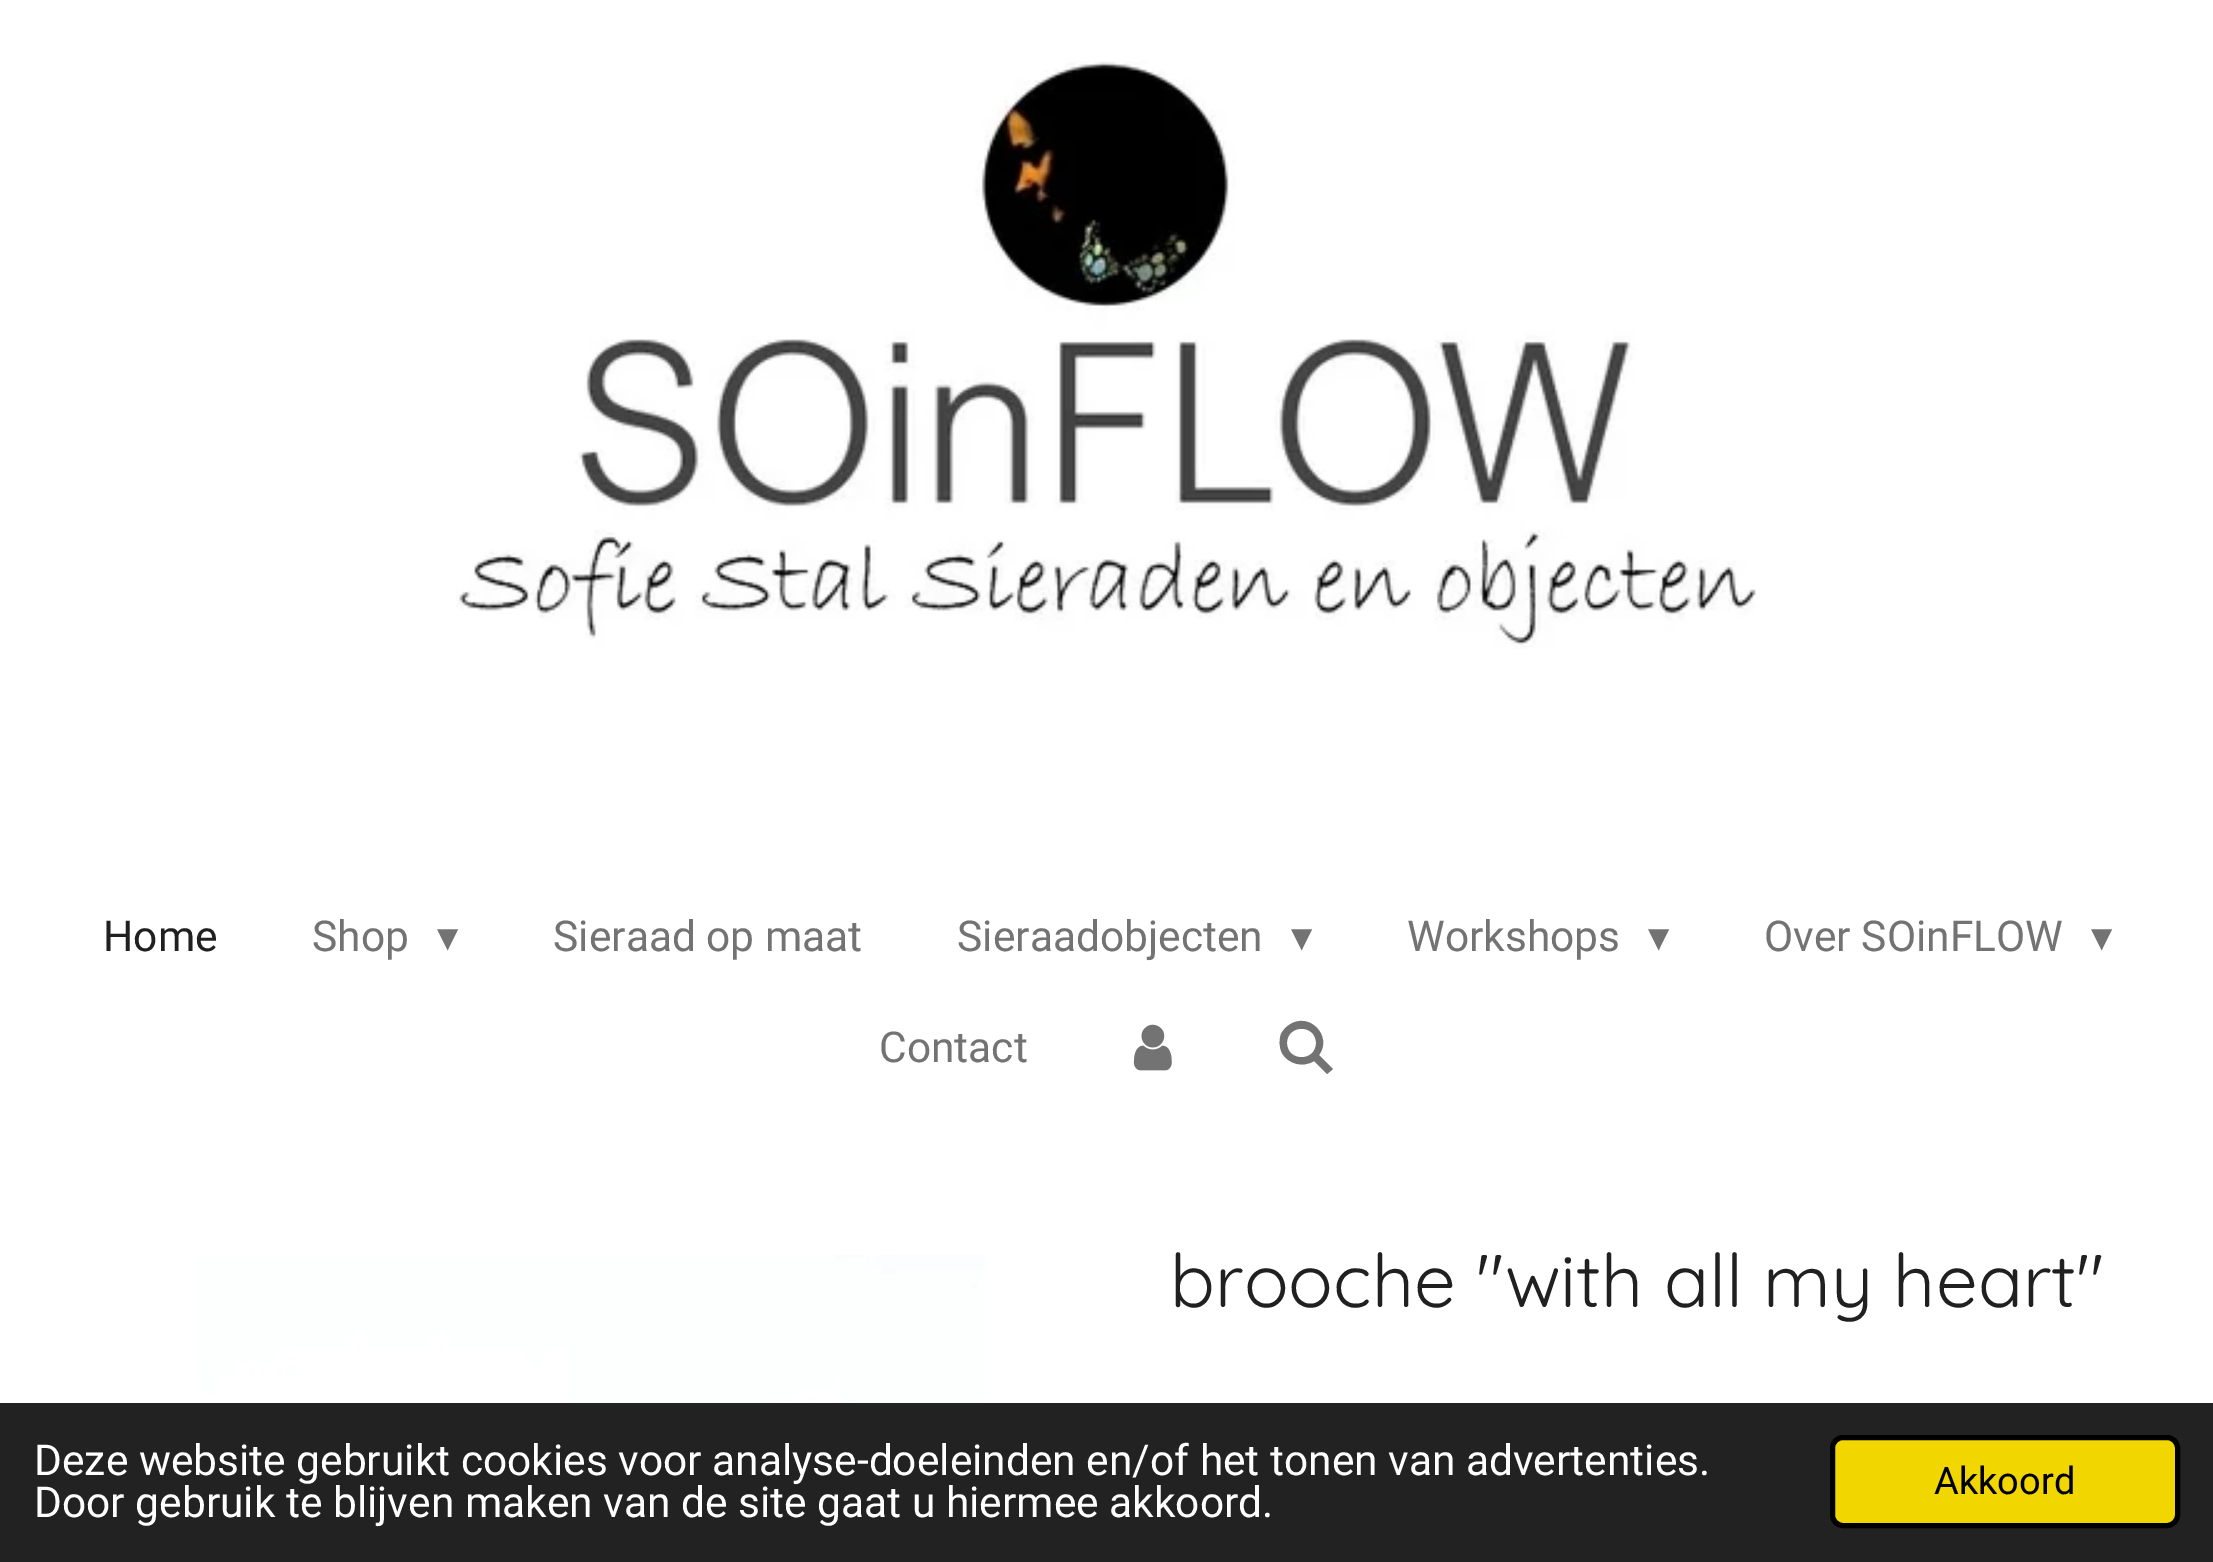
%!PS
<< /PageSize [2213 1562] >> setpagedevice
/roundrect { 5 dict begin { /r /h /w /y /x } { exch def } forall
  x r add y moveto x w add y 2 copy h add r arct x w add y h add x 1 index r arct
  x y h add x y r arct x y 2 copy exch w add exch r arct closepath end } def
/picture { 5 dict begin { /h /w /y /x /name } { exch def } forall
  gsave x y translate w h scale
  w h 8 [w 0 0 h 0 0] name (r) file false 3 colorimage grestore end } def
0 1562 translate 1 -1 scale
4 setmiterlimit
1 setgray
0 0 2213 1562 rectfill
(img1.rgb) 456 61 1300 588 picture
/Roboto-Regular [42.5 0 0 -42.5 0 0] selectfont
0.125 setgray
103 951 moveto (Home) show
0.451 setgray
312 951 moveto (Shop) show
/DejaVuSans-Regular [42.5 0 0 -42.5 0 0] selectfont
437 951 moveto (▾) show
/Roboto-Regular [42.5 0 0 -42.5 0 0] selectfont
553 951 moveto (Sieraad op maat) show
957 951 moveto (Sieraadobjecten) show
/DejaVuSans-Regular [42.5 0 0 -42.5 0 0] selectfont
1291 951 moveto (▾) show
/Roboto-Regular [42.5 0 0 -42.5 0 0] selectfont
1407 951 moveto (Workshops) show
/DejaVuSans-Regular [42.5 0 0 -42.5 0 0] selectfont
1648 951 moveto (▾) show
/Roboto-Regular [42.5 0 0 -42.5 0 0] selectfont
1764 951 moveto (Over SOinFLOW) show
/DejaVuSans-Regular [42.5 0 0 -42.5 0 0] selectfont
2091 951 moveto (▾) show
/Roboto-Regular [42.5 0 0 -42.5 0 0] selectfont
879 1062 moveto (Contact) show
(img2.rgb) 1133 1024 39 47 picture
newpath 1319 1055 moveto 1333 1069 lineto 1327 1074 lineto 1314 1061 lineto 1303 1068 1288 1064 1282 1053 curveto 1279 1047 1279 1040 1281 1034 curveto 1283 1030 1286 1027 1289 1025 curveto 1309 1011 1333 1036 1319 1055 curveto closepath 1316 1043 moveto 1316 1024 1287 1024 1287 1043 curveto 1287 1062 1316 1062 1316 1043 curveto closepath fill
(img3.rgb) 198 1255 787 148 picture
/Quicksand-Regular [74.25 0 0 -74.25 0 0] selectfont
0.125 setgray
1170 1307 moveto (brooche "with all my heart") show
0.133 setgray
0 1403 2213 159 rectfill
/Roboto-Regular [42.5 0 0 -42.5 0 0] selectfont
1 setgray
34 1475 moveto (Deze website gebruikt cookies voor analyse-doeleinden en/of het tonen van advertenties.) show
34 1517 moveto (Door gebruik te blijven maken van de site gaat u hiermee akkoord.) show
0.945 0.839 0 setrgbcolor
1832.5 1437.5 345 88 10.5 roundrect gsave fill grestore
0 setgray
5 setlinewidth
stroke
/Roboto-Regular [38 0 0 -38 0 0] selectfont
1934 1494 moveto (Akkoord) show
showpage
